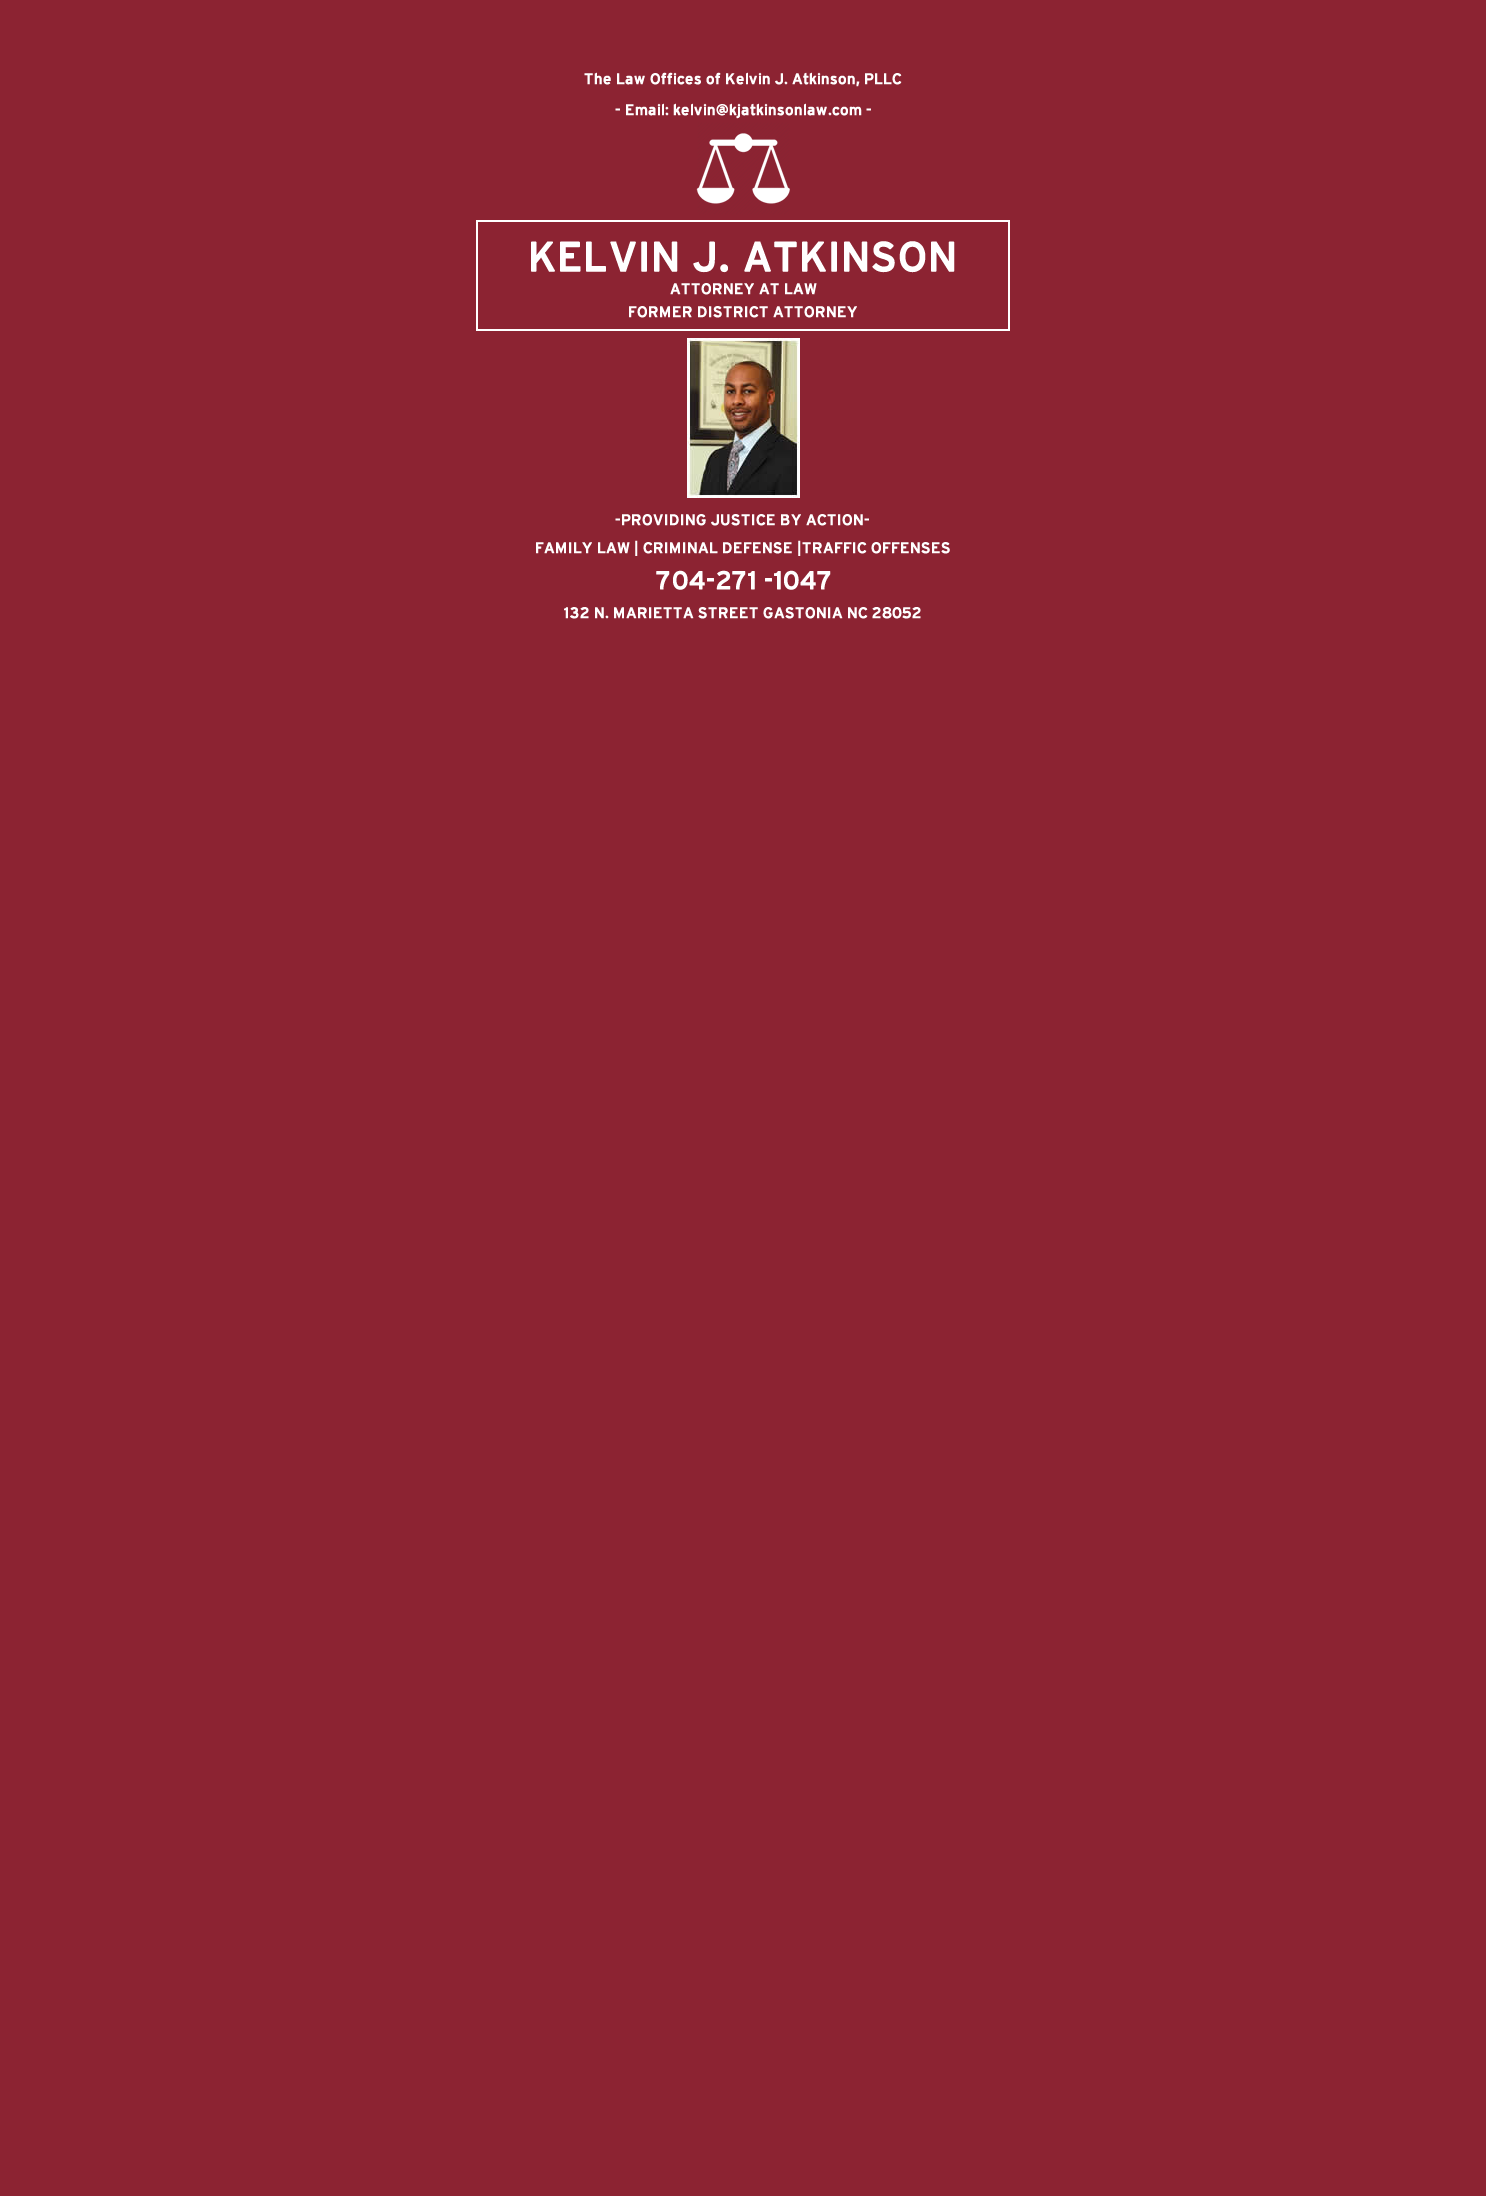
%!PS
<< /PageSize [1486 2196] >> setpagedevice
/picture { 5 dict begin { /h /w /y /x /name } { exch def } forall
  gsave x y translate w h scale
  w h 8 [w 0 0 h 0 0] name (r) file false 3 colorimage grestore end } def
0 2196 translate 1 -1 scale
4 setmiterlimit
0.549 0.137 0.196 setrgbcolor
0 0 1486 2196 rectfill
(img1.rgb) 476 72 534 547 picture
showpage
